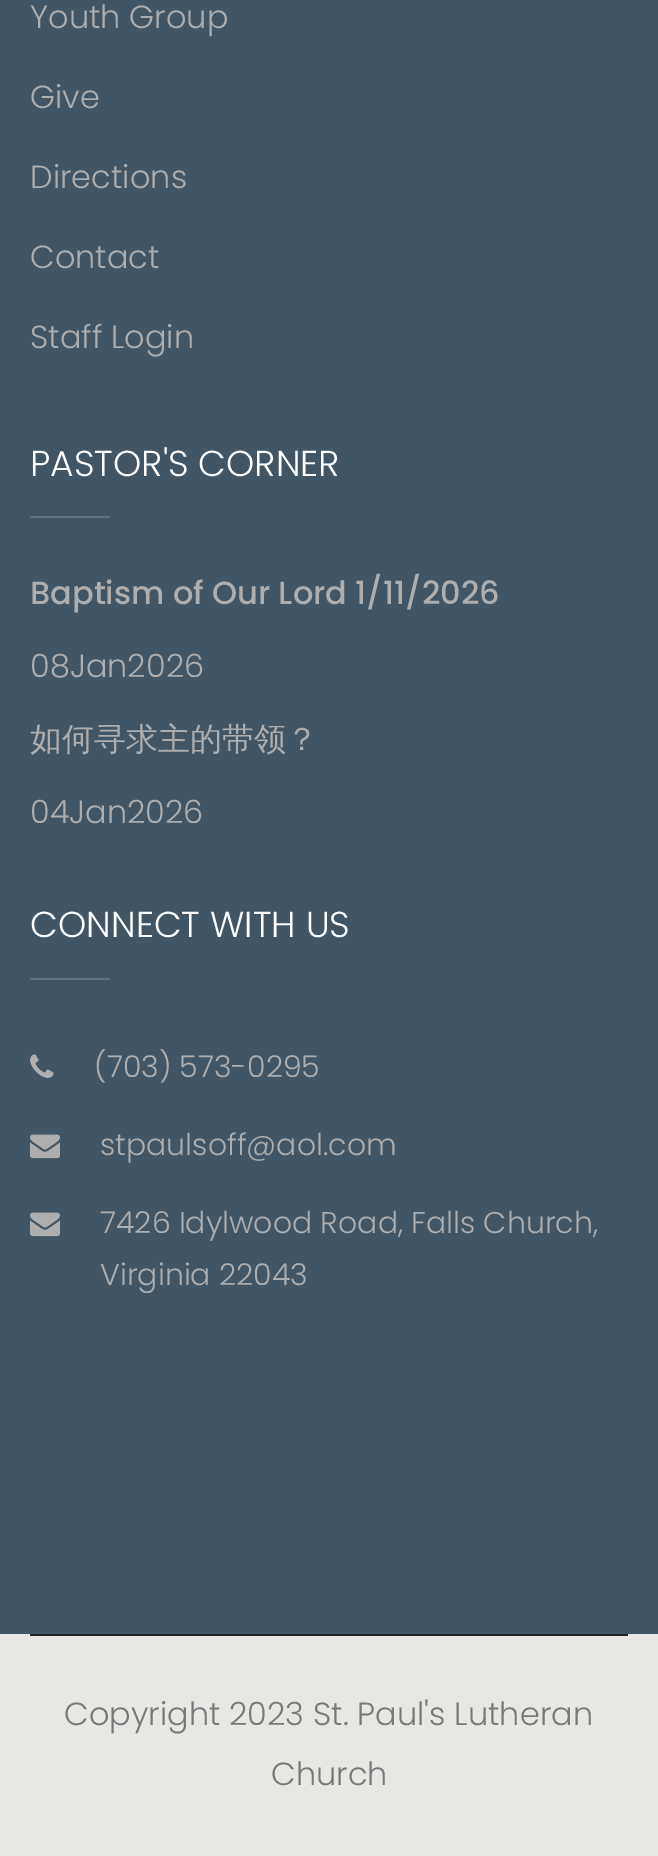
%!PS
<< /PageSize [658 1856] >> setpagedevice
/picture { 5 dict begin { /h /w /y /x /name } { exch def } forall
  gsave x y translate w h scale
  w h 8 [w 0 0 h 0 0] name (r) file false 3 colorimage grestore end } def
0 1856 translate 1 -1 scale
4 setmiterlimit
0.259 0.333 0.392 setrgbcolor
0 0 658 1856 rectfill
/Poppins-Light [32 0 0 -32 0 0] selectfont
0.682 setgray
30 28 moveto (Youth Group) show
30 108 moveto (Give) show
30 188 moveto (Directions) show
30 268 moveto (Contact) show
30 348 moveto (Staff Login) show
/Poppins-Light [36 0 0 -36 0 0] selectfont
1 setgray
30 476 moveto (PASTOR'S CORNER) show
0.4 0.439 0.482 setrgbcolor
30 516 80 2 rectfill
/Poppins-Medium [32 0 0 -32 0 0] selectfont
0.682 setgray
30 604 moveto (Baptism of Our Lord 1/11/2026) show
/Poppins-Light [32 0 0 -32 0 0] selectfont
30 677 moveto (08Jan2026) show
/WenQuanYiZenHei-Medium [32 0 0 -32 0 0] selectfont
30 750 moveto (如何寻求主的带领？) show
/Poppins-Light [32 0 0 -32 0 0] selectfont
30 823 moveto (04Jan2026) show
/Poppins-Light [36 0 0 -36 0 0] selectfont
1 setgray
30 937 moveto (CONNECT WITH US) show
0.4 0.439 0.482 setrgbcolor
30 978 80 2 rectfill
(img1.rgb) 30 1054 24 24 picture
/Poppins-Light [30 0 0 -30 0 0] selectfont
0.682 setgray
94 1077 moveto (\(703\) 573-0295) show
(img2.rgb) 30 1134 30 25 picture
100 1155 moveto (stpaulsoff@aol.com) show
(img2.rgb) 30 1212 30 25 picture
100 1233 moveto (7426 Idylwood Road, Falls Church,) show
100 1285 moveto (Virginia 22043) show
0.91 0.906 0.89 setrgbcolor
0 1634 658 222 rectfill
0.133 setgray
30 1634 598 2 rectfill
/Poppins-Light [32 0 0 -32 0 0] selectfont
0.471 0.471 0.478 setrgbcolor
64 1725 moveto (Copyright 2023 St. Paul's Lutheran) show
271 1785 moveto (Church) show
showpage
